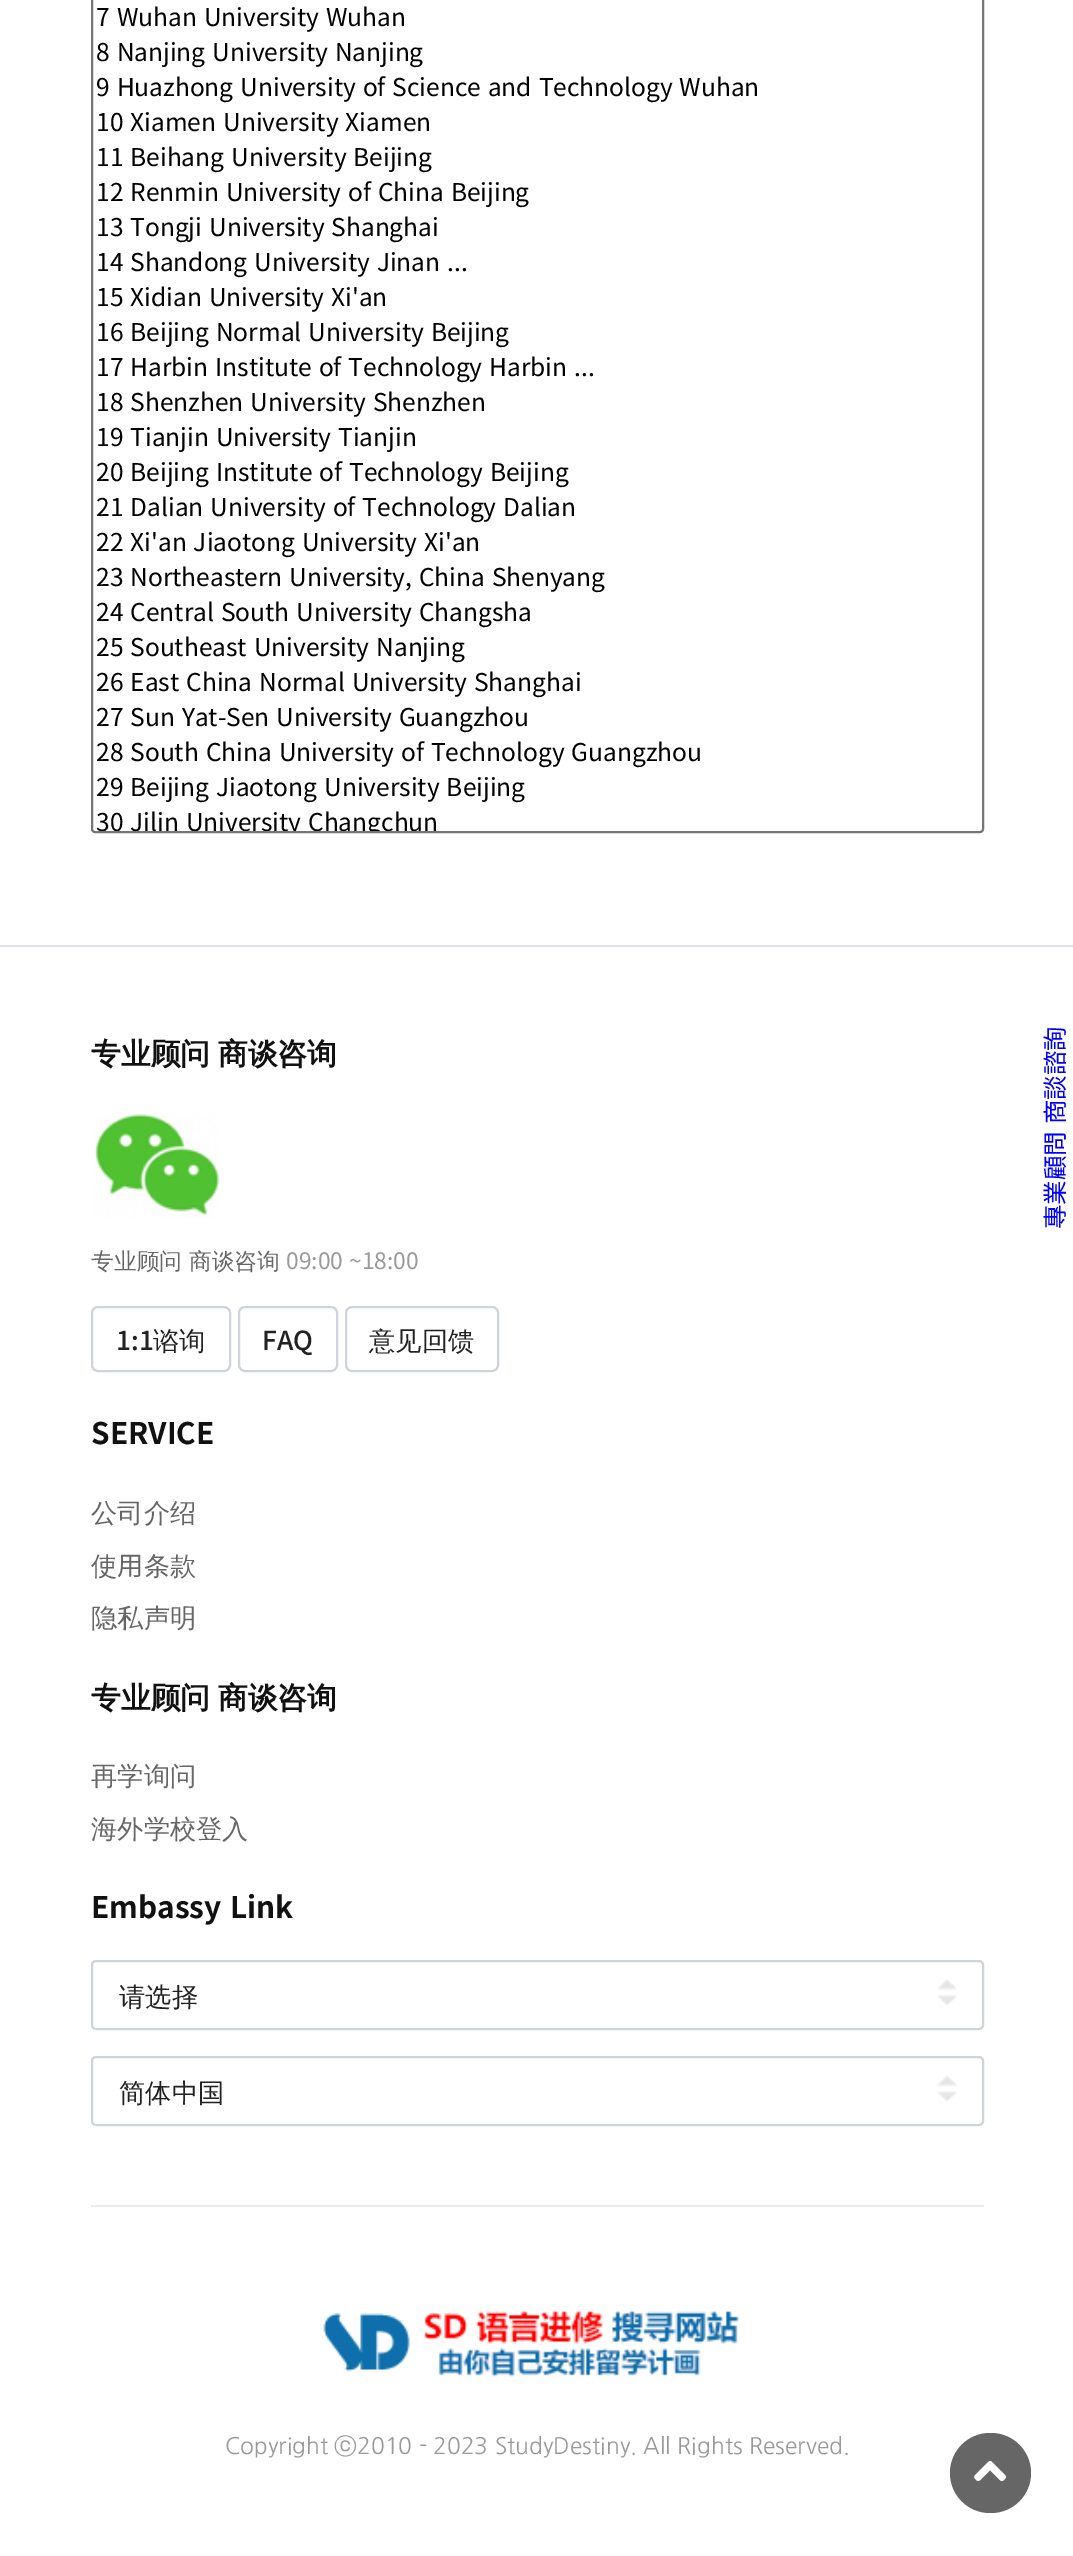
%!PS
<< /PageSize [1073 2556] >> setpagedevice
/roundrect { 5 dict begin { /r /h /w /y /x } { exch def } forall
  x r add y moveto x w add y 2 copy h add r arct x w add y h add x 1 index r arct
  x y h add x y r arct x y 2 copy exch w add exch r arct closepath end } def
/picture { 5 dict begin { /h /w /y /x /name } { exch def } forall
  gsave x y translate w h scale
  w h 8 [w 0 0 h 0 0] name (r) file false 3 colorimage grestore end } def
0 2556 translate 1 -1 scale
4 setmiterlimit
1 setgray
0 0 1073 2556 rectfill
0.463 setgray
2 setlinewidth
92 -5 891 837 3 roundrect stroke
/NotoSansKR-Regular [24.5 0 0 -24.5 0 0] selectfont
0 setgray
96 26 moveto 1.5 0 32 (7 Wuhan University Wuhan) widthshow
96 61 moveto 1.5 0 32 (8 Nanjing University Nanjing) widthshow
96 96 moveto 1.5 0 32 (9 Huazhong University of Science and Technology Wuhan) widthshow
96 131 moveto 1.5 0 32 (10 Xiamen University Xiamen) widthshow
96 166 moveto 1.5 0 32 (11 Beihang University Beijing) widthshow
96 201 moveto 1.5 0 32 (12 Renmin University of China Beijing) widthshow
96 236 moveto 1.5 0 32 (13 Tongji University Shanghai) widthshow
96 271 moveto 1.5 0 32 (14 Shandong University Jinan ...) widthshow
96 306 moveto 1.5 0 32 (15 Xidian University Xi'an) widthshow
96 341 moveto 1.5 0 32 (16 Beijing Normal University Beijing) widthshow
96 376 moveto 1.5 0 32 (17 Harbin Institute of Technology Harbin ...) widthshow
96 411 moveto 1.5 0 32 (18 Shenzhen University Shenzhen) widthshow
96 446 moveto 1.5 0 32 (19 Tianjin University Tianjin) widthshow
96 481 moveto 1.5 0 32 (20 Beijing Institute of Technology Beijing) widthshow
96 516 moveto 1.5 0 32 (21 Dalian University of Technology Dalian) widthshow
96 551 moveto 1.5 0 32 (22 Xi'an Jiaotong University Xi'an) widthshow
96 586 moveto 1.5 0 32 (23 Northeastern University, China Shenyang) widthshow
96 621 moveto 1.5 0 32 (24 Central South University Changsha) widthshow
96 656 moveto 1.5 0 32 (25 Southeast University Nanjing) widthshow
96 691 moveto 1.5 0 32 (26 East China Normal University Shanghai) widthshow
96 726 moveto 1.5 0 32 (27 Sun Yat-Sen University Guangzhou) widthshow
96 761 moveto 1.5 0 32 (28 South China University of Technology Guangzhou) widthshow
96 796 moveto 1.5 0 32 (29 Beijing Jiaotong University Beijing) widthshow
gsave
93 0 889 831 rectclip
96 831 moveto 1.5 0 32 (30 Jilin University Changchun) widthshow
grestore
0.871 0.886 0.902 setrgbcolor
0 945 1073 2 rectfill
/WenQuanYiZenHei-Bold [29.75 0 0 -29.75 0 0] selectfont
0.067 setgray
91 1064 moveto -1 0 32 (专业顾问 商谈咨询) widthshow
(img1.rgb) 94 1113 126 105 picture
/WenQuanYiZenHei-Medium [22.75 0 0 -22.75 0 0] selectfont
0.4 setgray
91 1269 moveto (专业顾问 商谈咨询) show
/NotoSansKR-Regular [22.75 0 0 -22.75 0 0] selectfont
0.6 setgray
286 1269 moveto 1 0 32 (09:00 ~18:00) widthshow
0.808 0.831 0.855 setrgbcolor
92 1307 138 64 6 roundrect stroke
/NotoSansKR-Medium [26.25 0 0 -26.25 0 0] selectfont
0.133 setgray
116 1350 moveto (1:1) show
/WenQuanYiZenHei-Medium [26.25 0 0 -26.25 0 0] selectfont
153 1350 moveto (谘询) show
0.808 0.831 0.855 setrgbcolor
239 1307 98 64 6 roundrect stroke
/NotoSansKR-Medium [26.25 0 0 -26.25 0 0] selectfont
0.133 setgray
262 1350 moveto (FAQ) show
0.808 0.831 0.855 setrgbcolor
346 1307 152 64 6 roundrect stroke
/WenQuanYiZenHei-Medium [26.25 0 0 -26.25 0 0] selectfont
0.133 setgray
369 1350 moveto (意见回馈) show
/NotoSansKR-Bold [29.75 0 0 -29.75 0 0] selectfont
0.067 setgray
91 1444 moveto (SERVICE) show
/WenQuanYiZenHei-Medium [26.25 0 0 -26.25 0 0] selectfont
0.4 setgray
91 1522 moveto (公司介绍) show
91 1575 moveto (使) show
/NotoSansKR-Regular [26.25 0 0 -26.25 0 0] selectfont
117 1575 moveto (用) show
/WenQuanYiZenHei-Medium [26.25 0 0 -26.25 0 0] selectfont
144 1575 moveto (条款) show
91 1627 moveto (隐私声明) show
/WenQuanYiZenHei-Bold [29.75 0 0 -29.75 0 0] selectfont
0.067 setgray
91 1708 moveto -1 0 32 (专业顾问 商谈咨询) widthshow
/WenQuanYiZenHei-Medium [26.25 0 0 -26.25 0 0] selectfont
0.4 setgray
91 1785 moveto (再学询问) show
91 1838 moveto (海外学校登入) show
/NotoSansKR-Bold [29.75 0 0 -29.75 0 0] selectfont
0.067 setgray
91 1918 moveto 2 0 32 (Embassy Link) widthshow
(img2.rgb) 937 1979 20 27 picture
0.808 0.831 0.855 setrgbcolor
92 1961 891 68 4 roundrect stroke
/WenQuanYiZenHei-Medium [26.25 0 0 -26.25 0 0] selectfont
0.133 setgray
119 2006 moveto (请选择) show
(img3.rgb) 937 2075 20 27 picture
0.808 0.831 0.855 setrgbcolor
92 2057 891 68 4 roundrect stroke
0.133 setgray
119 2102 moveto (简体中国) show
0.914 0.925 0.937 setrgbcolor
91 2205 893 2 rectfill
(img4.rgb) 323 2311 416 66 picture
/NanumGothic-Regular [22.75 0 0 -22.75 0 0] selectfont
0.6 setgray
225 2454 moveto (Copyright) show
/WenQuanYiZenHei-Medium [22.75 0 0 -22.75 0 0] selectfont
334 2454 moveto (ⓒ) show
/NanumGothic-Regular [22.75 0 0 -22.75 0 0] selectfont
357 2454 moveto (2010 - 2023 StudyDestiny. All Rights Reserved.) show
/NotoSansKR-Regular [24.5 0 0 -24.5 0 0] selectfont
0 0 1 setrgbcolor
gsave 1064 1229 translate -90 rotate 0 0 moveto 1.5 0 32 (專業顧問 商談諮詢) widthshow grestore
0.4 setgray
950 2433 81 80 40 roundrect fill
(img5.rgb) 974 2461 32 21 picture
showpage
